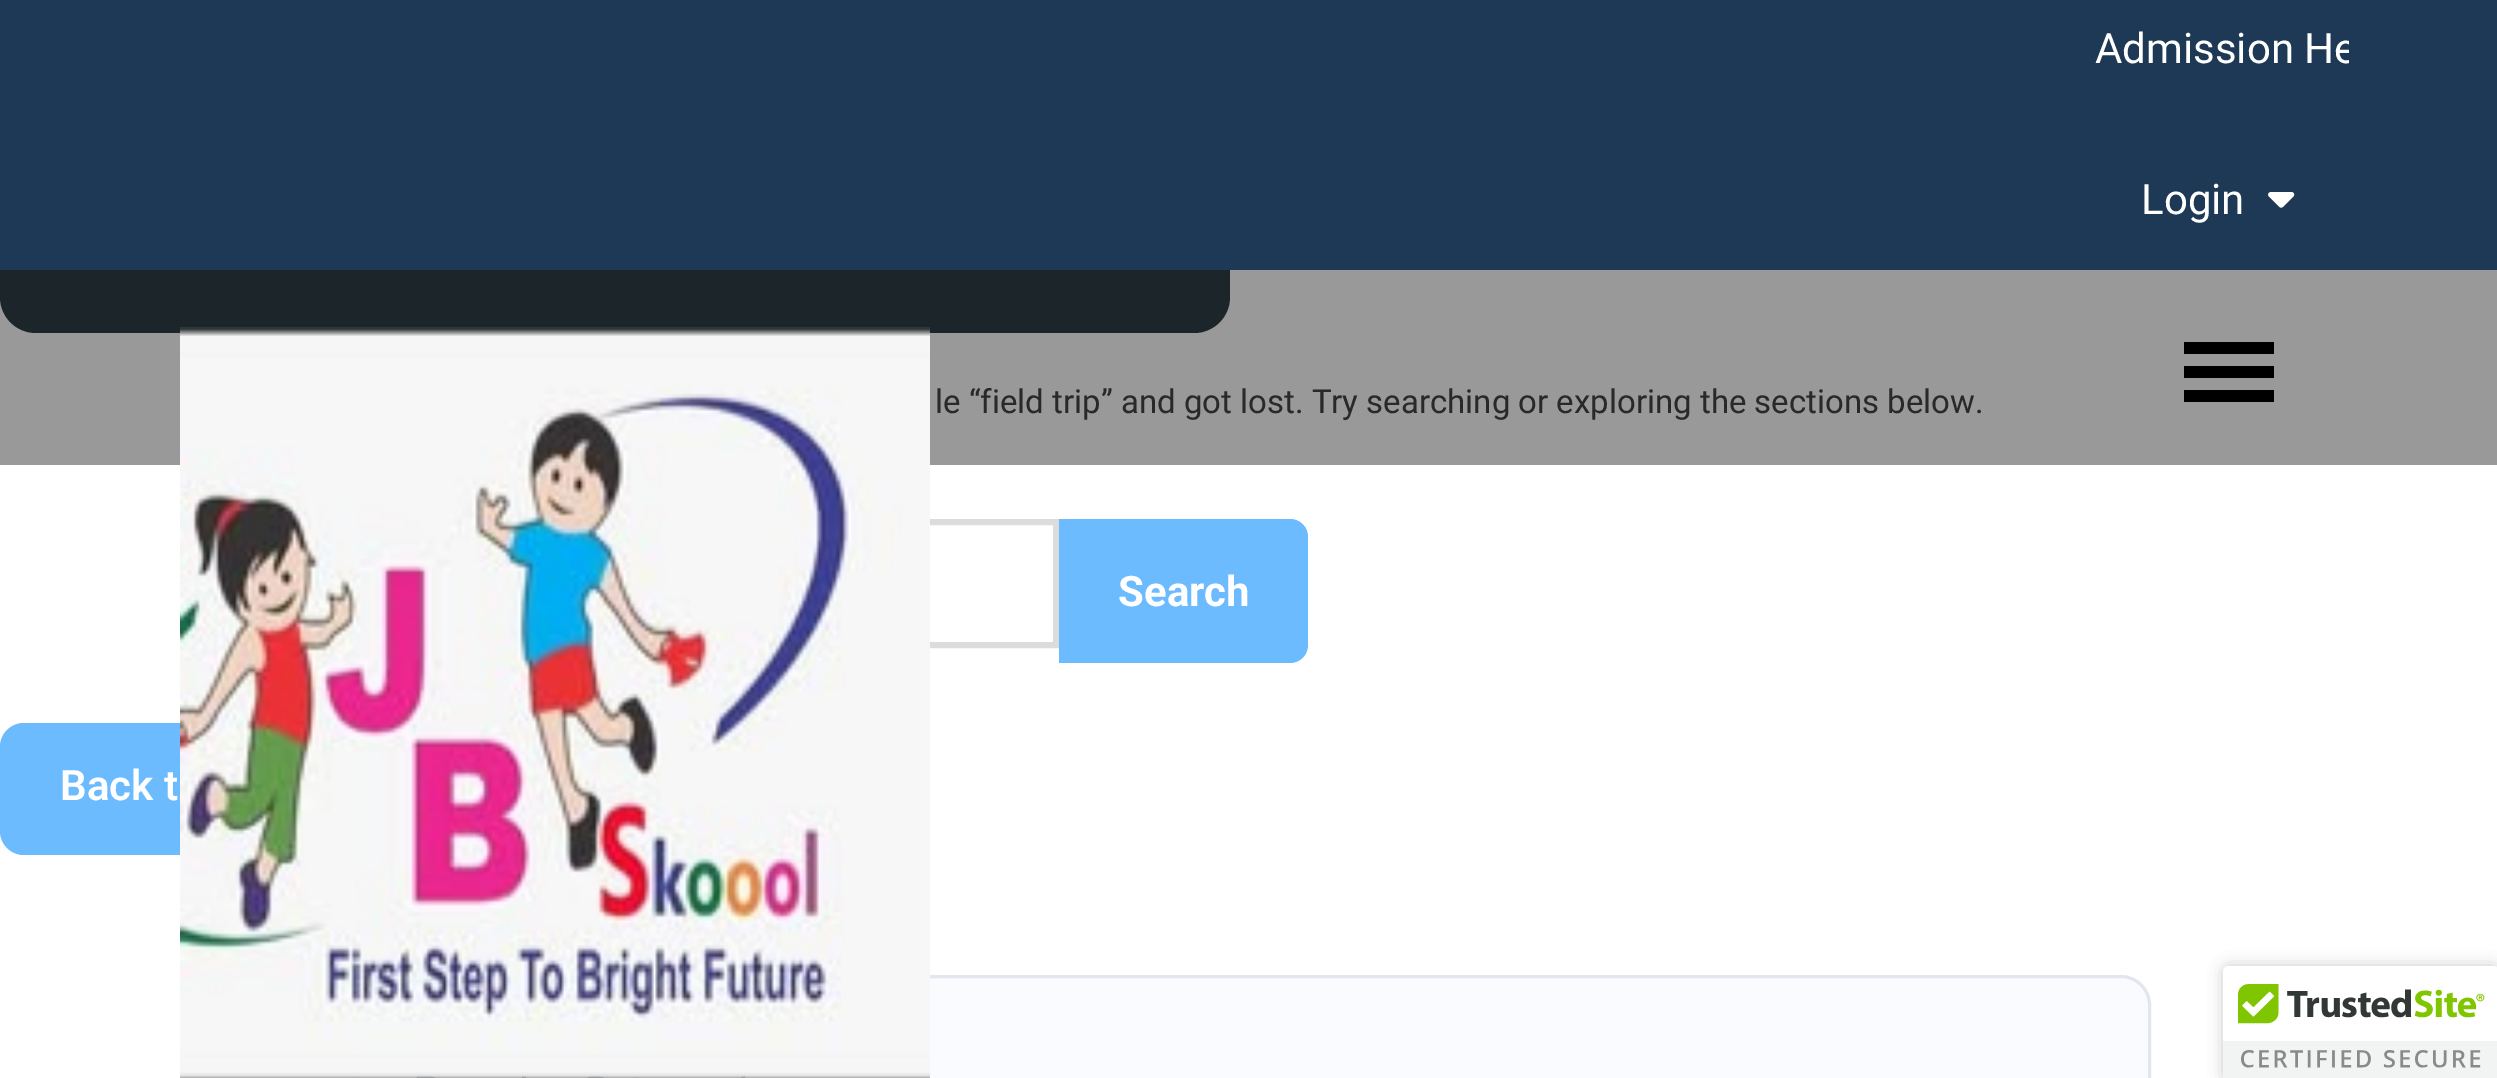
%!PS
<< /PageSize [2497 1078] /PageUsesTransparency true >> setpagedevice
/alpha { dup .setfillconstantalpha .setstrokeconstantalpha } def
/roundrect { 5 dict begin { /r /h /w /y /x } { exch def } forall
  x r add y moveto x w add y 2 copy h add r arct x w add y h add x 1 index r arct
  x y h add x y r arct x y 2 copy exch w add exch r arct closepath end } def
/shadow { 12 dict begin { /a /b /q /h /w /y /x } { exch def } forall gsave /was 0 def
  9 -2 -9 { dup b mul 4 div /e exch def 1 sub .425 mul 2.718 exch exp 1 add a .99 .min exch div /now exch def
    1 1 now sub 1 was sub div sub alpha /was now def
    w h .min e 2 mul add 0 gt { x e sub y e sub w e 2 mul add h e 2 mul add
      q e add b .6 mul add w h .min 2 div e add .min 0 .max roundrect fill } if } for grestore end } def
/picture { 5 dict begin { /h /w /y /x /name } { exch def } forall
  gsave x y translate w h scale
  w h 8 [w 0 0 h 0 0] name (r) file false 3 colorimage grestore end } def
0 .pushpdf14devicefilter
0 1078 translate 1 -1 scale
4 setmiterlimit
1 setgray
0 0 2497 1078 rectfill
0.184 0.243 0.275 setrgbcolor
0 150 1230 183 36 roundrect fill
0.114 0.224 0.333 setrgbcolor
0 0 2497 270 rectfill
gsave
150 0 2199 102 rectclip
/Roboto-Regular [42 0 0 -42 0 0] selectfont
1 setgray
2095 63 moveto (Admission He) show
grestore
/Roboto-Regular [42 0 0 -42 0 0] selectfont
1 setgray
2141 214 moveto (Login) show
(img1.rgb) 2268 192 27 16 picture
/Roboto-Regular [33 0 0 -33 0 0] selectfont
0.267 setgray
935 413 moveto (le “field trip” and got lost. Try searching or exploring the sections below.) show
0.4 alpha
0 setgray
0 270 2497 195 rectfill
1 alpha
0.863 setgray
6 setlinewidth
579 522 477 123 rectstroke
0.427 0.733 1 setrgbcolor
0 723 477 132 24 roundrect fill
0.976 0.984 1 setrgbcolor
352.5 976.5 1797 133 28.5 roundrect gsave fill grestore
0.89 0.902 0.937 setrgbcolor
3 setlinewidth
stroke
(img2.rgb) 180 327 750 751 picture
0 setgray
2184 342 90 12 rectfill
2184 366 90 12 rectfill
2184 390 90 12 rectfill
0.427 0.733 1 setrgbcolor
newpath 1059 519 moveto 1290 519 lineto 1300 519 1308 527 1308 537 curveto 1308 645 lineto 1308 655 1300 663 1290 663 curveto 1059 663 lineto closepath fill
/Roboto-Bold [42 0 0 -42 0 0] selectfont
1 setgray
1118 606 moveto (Search) show
/Roboto-SemiBold [42 0 0 -42 0 0] selectfont
60 800 moveto (Back t) show
0 setgray
2223 966 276 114 6 7.5 0.2 shadow
1 setgray
newpath 2229 966 moveto 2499 966 lineto 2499 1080 lineto 2223 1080 lineto 2223 972 lineto 2223 968.5 2225.5 966 2229 966 curveto closepath fill
(img3.rgb) 2223 966 274 112 picture
.poppdf14devicefilter showpage
